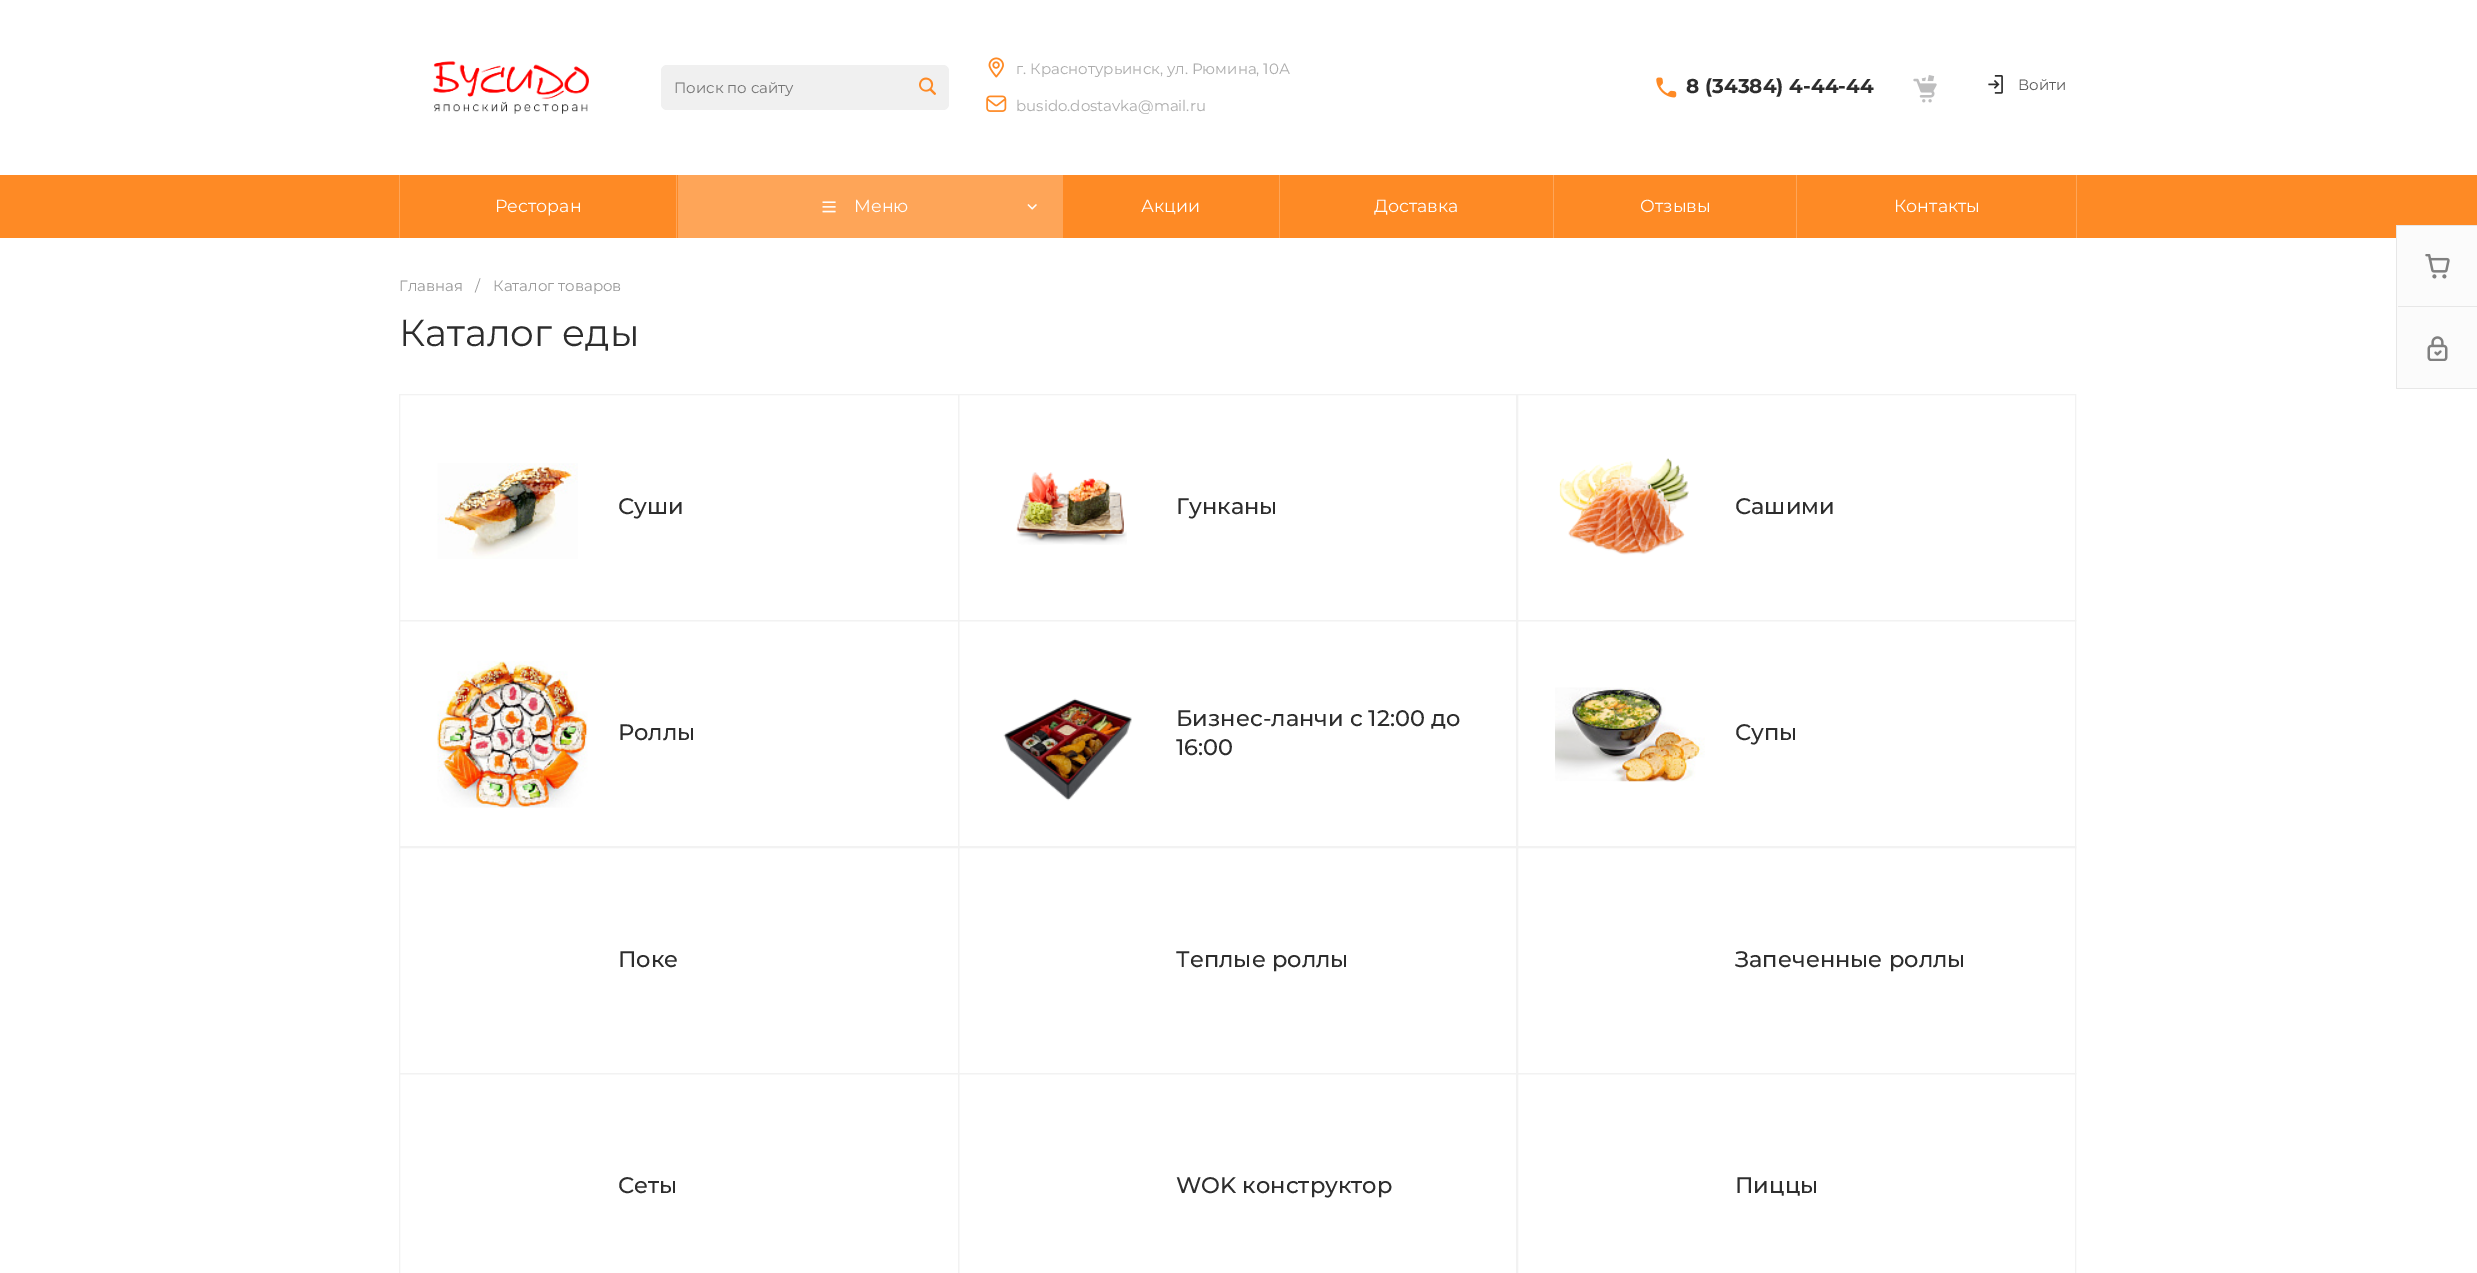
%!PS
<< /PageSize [2477 1273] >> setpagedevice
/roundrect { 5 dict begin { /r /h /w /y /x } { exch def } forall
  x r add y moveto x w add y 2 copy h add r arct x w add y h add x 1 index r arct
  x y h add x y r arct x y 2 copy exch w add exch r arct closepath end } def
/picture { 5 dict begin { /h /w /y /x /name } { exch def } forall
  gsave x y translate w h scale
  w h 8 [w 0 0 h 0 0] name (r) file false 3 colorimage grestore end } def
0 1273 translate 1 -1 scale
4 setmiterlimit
1 setgray
0 0 2477 1273 rectfill
(img1.rgb) 433 61 156 53 picture
0.941 setgray
661 65 288 45 6 roundrect fill
/Montserrat-Regular [15 0 0 -15 0 0] selectfont
0.459 setgray
674 93 moveto (Поиск по сайту) show
(img2.rgb) 919 77 17 18 picture
(img3.rgb) 988 57 16 21 picture
0.675 setgray
1016 74 moveto (г. Краснотурьинск, ул. Рюмина, 10А) show
(img4.rgb) 986 95 21 17 picture
1016 111 moveto (busido.dostavka@mail.ru) show
(img5.rgb) 1656 77 21 21 picture
/Montserrat-Bold [20 0 0 -20 0 0] selectfont
0.176 setgray
1686 93 moveto (8 \(34384\) 4-44-44) show
(img6.rgb) 1913 75 24 28 picture
(img7.rgb) 1988 75 15 19 picture
/Montserrat-Regular [15 0 0 -15 0 0] selectfont
0.357 setgray
2018 90 moveto (Войти) show
0.996 0.541 0.145 setrgbcolor
0 175 2477 63 rectfill
0.996 0.647 0.345 setrgbcolor
676 175 1 63 rectfill
399 175 1 63 rectfill
/Montserrat-Regular [17.5 0 0 -17.5 0 0] selectfont
1 setgray
495 212 moveto (Ресторан) show
0.996 0.647 0.345 setrgbcolor
678 175 385 63 rectfill
(img8.rgb) 822 201 14 12 picture
1 setgray
854 212 moveto (Меню) show
(img9.rgb) 1027 204 10 6 picture
0.996 0.647 0.345 setrgbcolor
1279 175 1 63 rectfill
1 setgray
1141 212 moveto (Акции) show
0.996 0.647 0.345 setrgbcolor
1553 175 1 63 rectfill
1 setgray
1374 212 moveto (Доставка) show
0.996 0.647 0.345 setrgbcolor
1796 175 1 63 rectfill
1 setgray
1640 212 moveto (Отзывы) show
0.996 0.647 0.345 setrgbcolor
2076 175 1 63 rectfill
1 setgray
1894 212 moveto (Контакты) show
/Montserrat-Regular [15 0 0 -15 0 0] selectfont
0.604 setgray
399 291 moveto (Главная) show
475 291 moveto (/) show
493 291 moveto (Каталог товаров) show
0.984 setgray
2397 226 80 162 rectfill
0.906 setgray
2396 225 81 1 rectfill
2396 388 81 1 rectfill
2396 225 1 164 rectfill
2398 306 79 1 rectfill
(img10.rgb) 2425 254 25 25 picture
(img11.rgb) 2427 336 21 25 picture
/Montserrat-Regular [37.5 0 0 -37.5 0 0] selectfont
0.176 setgray
399 346 moveto (Каталог еды) show
0.949 setgray
399.5 394.5 559 226 rectstroke
(img12.rgb) 437 463 141 96 picture
/Montserrat-Medium [22.5 0 0 -22.5 0 0] selectfont
0.176 setgray
618 514 moveto (Суши) show
0.949 setgray
958.5 394.5 559 226 rectstroke
(img13.rgb) 1016 472 111 73 picture
0.176 setgray
1176 514 moveto (Гунканы) show
0.949 setgray
1516.5 394.5 559 226 rectstroke
(img14.rgb) 1559 458 130 97 picture
0.176 setgray
1735 514 moveto (Сашими) show
0.949 setgray
399.5 620.5 559 227 rectstroke
(img15.rgb) 437 661 151 147 picture
0.176 setgray
618 740 moveto (Роллы) show
0.949 setgray
958.5 620.5 559 227 rectstroke
(img16.rgb) 1003 698 129 103 picture
0.176 setgray
1176 726 moveto (Бизнес-ланчи с 12:00 до) show
1176 755 moveto (16:00) show
0.949 setgray
1516.5 620.5 559 227 rectstroke
(img17.rgb) 1555 687 150 95 picture
0.176 setgray
1735 740 moveto (Супы) show
0.949 setgray
399.5 846.5 559 227 rectstroke
0.176 setgray
618 967 moveto (Поке) show
0.949 setgray
958.5 846.5 559 227 rectstroke
0.176 setgray
1176 967 moveto (Теплые роллы) show
0.949 setgray
1516.5 846.5 559 227 rectstroke
0.176 setgray
1735 967 moveto (Запеченные роллы) show
0.949 setgray
399.5 1073.5 559 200 rectstroke
0.176 setgray
618 1193 moveto (Сеты) show
0.949 setgray
958.5 1073.5 559 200 rectstroke
0.176 setgray
1176 1193 moveto (WOK конструктор) show
0.949 setgray
1516.5 1073.5 559 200 rectstroke
0.176 setgray
1735 1193 moveto (Пиццы) show
showpage
